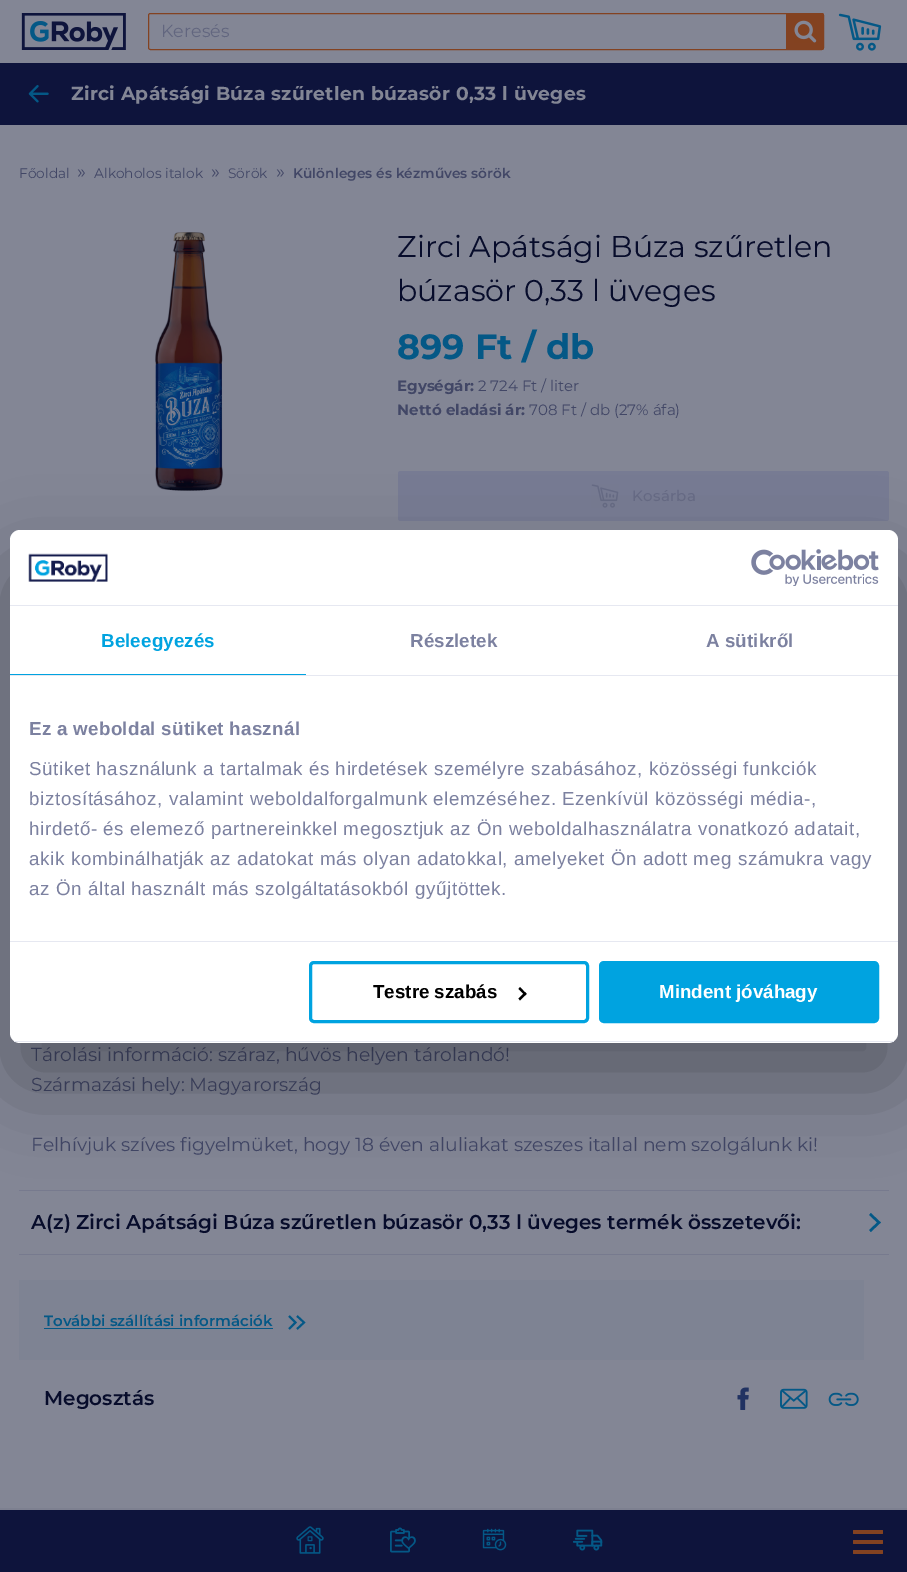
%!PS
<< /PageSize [907 1572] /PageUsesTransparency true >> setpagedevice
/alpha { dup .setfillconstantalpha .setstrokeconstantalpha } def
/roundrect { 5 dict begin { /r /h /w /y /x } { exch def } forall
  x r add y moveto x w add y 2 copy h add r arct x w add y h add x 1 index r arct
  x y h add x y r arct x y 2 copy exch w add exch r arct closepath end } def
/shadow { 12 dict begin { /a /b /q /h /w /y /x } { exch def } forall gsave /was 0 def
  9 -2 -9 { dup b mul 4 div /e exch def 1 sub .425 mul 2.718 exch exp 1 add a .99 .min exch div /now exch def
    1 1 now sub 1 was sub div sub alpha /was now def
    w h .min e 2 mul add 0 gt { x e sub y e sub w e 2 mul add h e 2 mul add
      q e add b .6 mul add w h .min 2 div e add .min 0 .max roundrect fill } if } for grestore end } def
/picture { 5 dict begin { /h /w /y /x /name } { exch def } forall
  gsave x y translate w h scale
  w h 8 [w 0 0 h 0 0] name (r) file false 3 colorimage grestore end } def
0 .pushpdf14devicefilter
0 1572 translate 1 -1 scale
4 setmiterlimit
0.514 0.525 0.584 setrgbcolor
0 0 907 1572 rectfill
(img1.rgb) 21 13 105 37 picture
0.514 0.259 0.129 setrgbcolor
148.5 13.5 675 36 2 roundrect stroke
/Montserrat-Regular [17.5 0 0 -17.5 0 0] selectfont
0.384 0.4 0.498 setrgbcolor
161 37 moveto (Keresés) show
0.514 0.259 0.129 setrgbcolor
newpath 786 13 moveto 821.5 13 lineto 823 13 824 14 824 15.5 curveto 824 47.5 lineto 824 49 823 50 821.5 50 curveto 786 50 lineto closepath fill
(img2.rgb) 794 20 23 23 picture
(img3.rgb) 838 13 44 38 picture
0.055 0.078 0.235 setrgbcolor
0 63 907 62 rectfill
(img4.rgb) 28 85 21 18 picture
/Montserrat-Bold [18.75 0 0 -18.75 0 0] selectfont
0.514 0.525 0.584 setrgbcolor
71 100 moveto 0.25 0 (Zirci Apátsági Búza szűretlen búzasör 0,33 l üveges) ashow
0.055 0.078 0.235 setrgbcolor
0 1510 907 62 rectfill
(img5.rgb) 296 1526 28 28 picture
(img6.rgb) 390 1527 26 26 picture
(img7.rgb) 482 1528 25 23 picture
(img8.rgb) 573 1529 30 22 picture
0.514 0.259 0.129 setrgbcolor
853 1530 30 4 1 roundrect fill
853 1540 30 4 1 roundrect fill
853 1550 30 4 1 roundrect fill
/Montserrat-Regular [13.75 0 0 -13.75 0 0] selectfont
0.259 0.278 0.4 setrgbcolor
19 178 moveto (Főoldal) show
/Montserrat-Regular [18.75 0 0 -18.75 0 0] selectfont
77 178 moveto (») show
/Montserrat-Regular [13.75 0 0 -13.75 0 0] selectfont
94 178 moveto (Alkoholos italok) show
/Montserrat-Regular [18.75 0 0 -18.75 0 0] selectfont
211 178 moveto (») show
/Montserrat-Regular [13.75 0 0 -13.75 0 0] selectfont
228 178 moveto (Sörök) show
/Montserrat-Regular [18.75 0 0 -18.75 0 0] selectfont
276 178 moveto (») show
/Montserrat-SemiBold [13.75 0 0 -13.75 0 0] selectfont
293 178 moveto (Különleges és kézműves sörök) show
(img9.rgb) 155 232 68 259 picture
/Montserrat-Regular [30 0 0 -30 0 0] selectfont
0.027 0.047 0.169 setrgbcolor
397 257 moveto (Zirci Apátsági Búza szűretlen) show
397 301 moveto (búzasör 0,33 l üveges) show
/Montserrat-Bold [35 0 0 -35 0 0] selectfont
0.016 0.345 0.525 setrgbcolor
397 359 moveto (899 Ft / db) show
/Montserrat-Bold [15 0 0 -15 0 0] selectfont
0.259 0.278 0.4 setrgbcolor
397 391 moveto (Egységár:) show
/Montserrat-Regular [15 0 0 -15 0 0] selectfont
478 391 moveto (2 724 Ft / liter) show
/Montserrat-Bold [15 0 0 -15 0 0] selectfont
397 415 moveto (Nettó eladási ár:) show
/Montserrat-Regular [15 0 0 -15 0 0] selectfont
529 415 moveto (708 Ft / db \(27% áfa\)) show
0.467 0.482 0.576 setrgbcolor
398 471 491 50 2.5 roundrect fill
(img10.rgb) 591 484 28 24 picture
/Montserrat-Medium [15 0 0 -15 0 0] selectfont
0.404 0.42 0.522 setrgbcolor
632 501 moveto 0.25 0 (Kosárba) ashow
/Montserrat-Regular [18.75 0 0 -18.75 0 0] selectfont
0.259 0.278 0.4 setrgbcolor
31 1061 moveto (Tárolási információ: száraz, hűvös helyen tárolandó!) show
31 1091 moveto (Származási hely: Magyarország) show
31 1151 moveto (Felhívjuk szíves figyelmüket, hogy 18 éven aluliakat szeszes itallal nem szolgálunk ki!) show
0.467 0.478 0.557 setrgbcolor
19 1190 870 1 rectfill
/Montserrat-SemiBold [20 0 0 -20 0 0] selectfont
0.027 0.047 0.169 setrgbcolor
31 1229 moveto (A\(z\) Zirci Apátsági Búza szűretlen búzasör 0,33 l üveges termék összetevői:) show
0.016 0.345 0.525 setrgbcolor
2.5 setlinewidth
newpath 870 1214 moveto 879 1222.5 lineto 870 1231 lineto stroke
0.467 0.478 0.557 setrgbcolor
19 1254 870 1 rectfill
0.494 0.514 0.576 setrgbcolor
19 1280 845 80 rectfill
/Montserrat-SemiBold [15 0 0 -15 0 0] selectfont
0.016 0.345 0.525 setrgbcolor
44 1326 moveto (További szállítási információk) show
44 1328 229 1 rectfill
1.9 setlinewidth
newpath 289 1316 moveto 295.5 1322.5 lineto 289 1329 lineto 297 1316 moveto 304 1322.5 lineto 297 1329 lineto stroke
/Montserrat-SemiBold [20 0 0 -20 0 0] selectfont
0.027 0.047 0.169 setrgbcolor
44 1405 moveto (Megosztás) show
(img11.rgb) 737 1387 12 23 picture
(img12.rgb) 780 1388 28 21 picture
(img13.rgb) 828 1392 31 14 picture
0.49 0.502 0.565 setrgbcolor
0 1508 907 2 rectfill
0 setgray
10 570 888 513 10 42.5 0.3 shadow
1 setgray
10 530 888 513 10 roundrect fill
0.902 0.91 0.945 setrgbcolor
10 605 888 1 rectfill
(img14.rgb) 28 553 80 29 picture
(img15.rgb) 751 549 128 37 picture
10 675 888 1 rectfill
0 0.639 0.878 setrgbcolor
10 674 296 1 rectfill
/LiberationSans-Bold [18.75 0 0 -18.75 0 0] selectfont
101 647 moveto 0.1 0 (Beleegyezés) ashow
0.486 0.506 0.627 setrgbcolor
410 647 moveto 0.1 0 (Részletek) ashow
706 647 moveto 0.1 0 (A sütikről) ashow
0.902 0.91 0.945 setrgbcolor
10 941 888 1 rectfill
0.486 0.506 0.627 setrgbcolor
29 735 moveto 0.3 0 (Ez a weboldal sütiket használ) ashow
/LiberationSans-Regular [18.75 0 0 -18.75 0 0] selectfont
29 775 moveto 0.62 0 (Sütiket használunk a tartalmak és hirdetések személyre szabásához, közösségi funkciók) ashow
29 805 moveto 0.62 0 (biztosításához, valamint weboldalforgalmunk elemzéséhez. Ezenkívül közösségi média-,) ashow
29 835 moveto 0.62 0 (hirdető- és elemező partnereinkkel megosztjuk az Ön weboldalhasználatra vonatkozó adatait,) ashow
29 865 moveto 0.62 0 (akik kombinálhatják az adatokat más olyan adatokkal, amelyeket Ön adott meg számukra vagy) ashow
29 895 moveto 0.62 0 (az Ön által használt más szolgáltatásokból gyűjtöttek.) ashow
gsave
10 530 888 513 10 roundrect clip newpath
0.902 0.91 0.945 setrgbcolor
10 1041 888 1 rectfill
grestore
0 0.639 0.878 setrgbcolor
3 setlinewidth
310.5 962.5 277 59 3.5 roundrect stroke
/LiberationSans-Bold [18.75 0 0 -18.75 0 0] selectfont
0 setgray
373 998 moveto (Testre szabás) show
newpath 520 987 moveto 526.5 994 lineto 525 995.5 lineto 518.5 989 lineto closepath fill
newpath 525 992 moveto 526.5 994 lineto 520 1000.5 lineto 518.5 998.5 lineto closepath fill
0 0.639 0.878 setrgbcolor
600.5 962.5 277 59 3.5 roundrect gsave fill grestore
stroke
1 setgray
659 998 moveto (Mindent jóváhagy) show
.poppdf14devicefilter showpage
